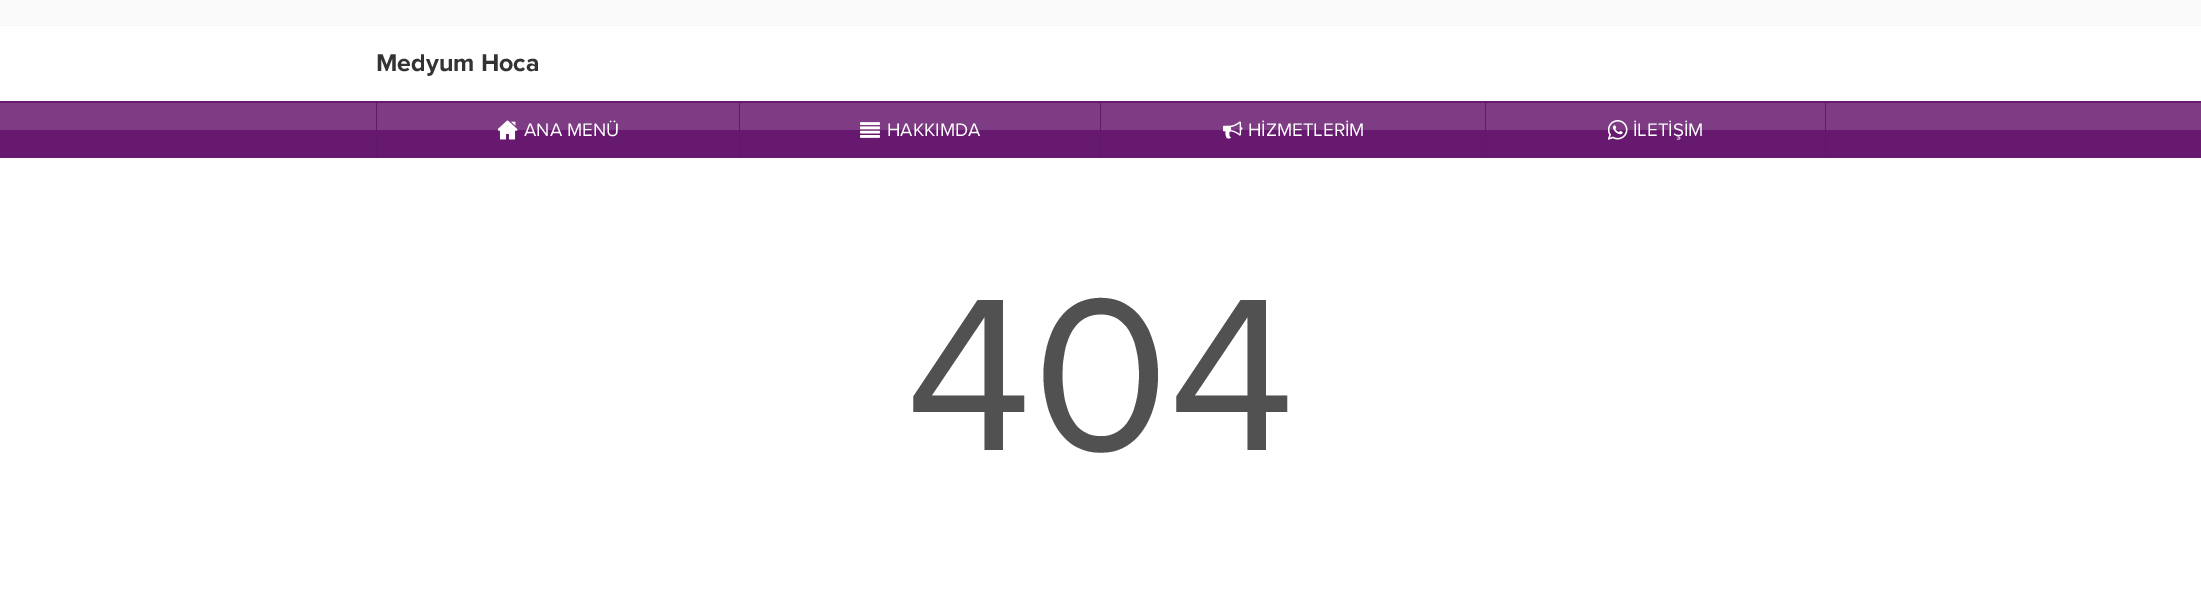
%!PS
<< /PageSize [2201 589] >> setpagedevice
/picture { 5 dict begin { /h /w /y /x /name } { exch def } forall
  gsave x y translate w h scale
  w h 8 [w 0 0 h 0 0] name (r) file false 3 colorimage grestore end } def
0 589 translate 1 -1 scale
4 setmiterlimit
1 setgray
0 0 2201 589 rectfill
0.98 setgray
0 0 2201 25 rectfill
0.969 setgray
0 25 2201 1 rectfill
/ProximaNova-Bold [25 0 0 -25 0 0] selectfont
0.2 setgray
376 71 moveto (Medyum Hoca) show
0.4 0.098 0.431 setrgbcolor
0 101 2201 57 rectfill
0.49 0.235 0.518 setrgbcolor
0 103 2201 27 rectfill
0.38 0.094 0.412 setrgbcolor
1825 103 1 55 rectfill
376 103 1 55 rectfill
(img1.rgb) 498 120 20 20 picture
/ProximaNova-Regular [18.75 0 0 -18.75 0 0] selectfont
1 setgray
524 136 moveto (ANA MENÜ) show
0.38 0.094 0.412 setrgbcolor
739 103 1 55 rectfill
(img2.rgb) 860 122 20 16 picture
1 setgray
887 136 moveto (HAKKIMDA) show
0.38 0.094 0.412 setrgbcolor
1100 103 1 55 rectfill
(img3.rgb) 1223 121 20 18 picture
1 setgray
1248 136 moveto (HİZMETLERİM) show
0.38 0.094 0.412 setrgbcolor
1485 103 1 55 rectfill
(img4.rgb) 1608 120 20 20 picture
1 setgray
1633 136 moveto (İLETİŞİM) show
/ProximaNova-Regular [225 0 0 -225 0 0] selectfont
0.318 setgray
906 450 moveto (404) show
showpage
